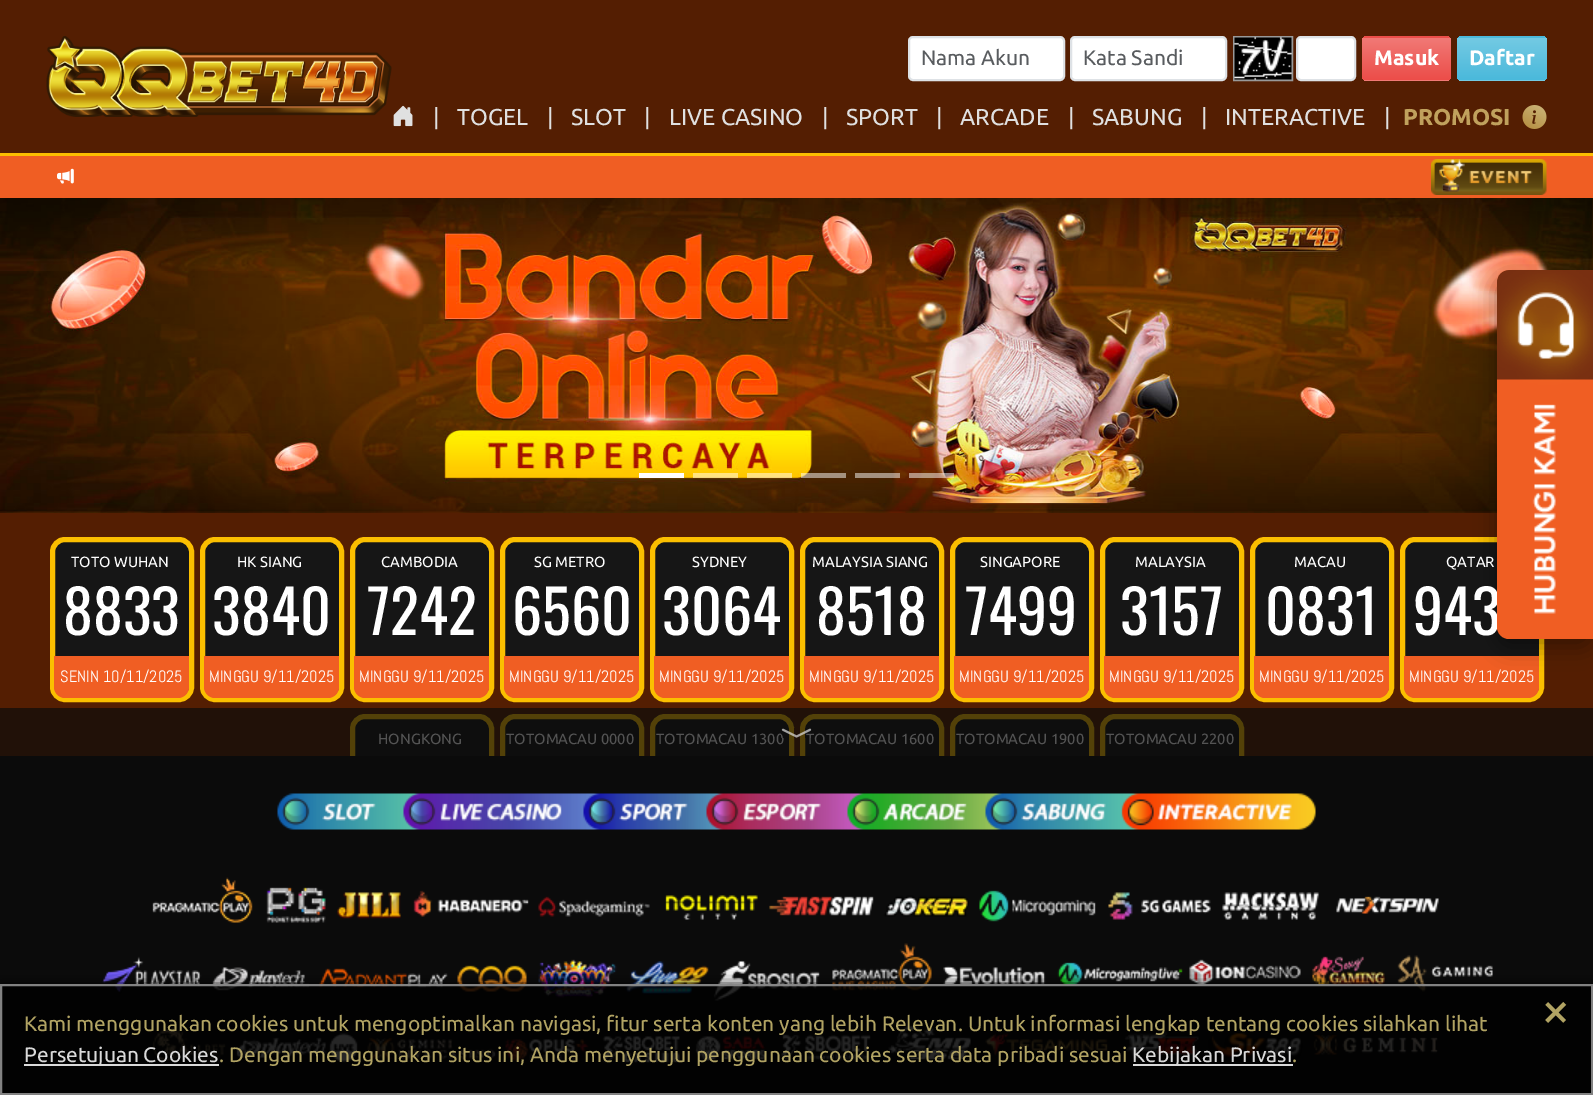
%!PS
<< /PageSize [1593 1095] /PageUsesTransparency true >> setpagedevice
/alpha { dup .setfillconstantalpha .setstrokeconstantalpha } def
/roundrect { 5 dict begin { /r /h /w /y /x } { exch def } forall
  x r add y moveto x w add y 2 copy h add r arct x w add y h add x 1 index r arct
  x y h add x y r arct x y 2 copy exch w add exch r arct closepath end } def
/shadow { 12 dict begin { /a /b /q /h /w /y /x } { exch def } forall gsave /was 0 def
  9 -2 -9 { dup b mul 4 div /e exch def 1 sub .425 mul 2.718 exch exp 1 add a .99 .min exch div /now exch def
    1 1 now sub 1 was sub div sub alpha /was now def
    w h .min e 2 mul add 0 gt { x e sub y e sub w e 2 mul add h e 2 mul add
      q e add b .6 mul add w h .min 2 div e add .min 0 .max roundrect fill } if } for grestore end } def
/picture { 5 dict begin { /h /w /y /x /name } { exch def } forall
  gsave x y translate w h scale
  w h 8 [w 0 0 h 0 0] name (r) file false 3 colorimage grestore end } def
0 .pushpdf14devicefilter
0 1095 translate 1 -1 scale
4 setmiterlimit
0.329 0.118 0.008 setrgbcolor
0 0 1593 1095 rectfill
0.129 0.067 0.031 setrgbcolor
0 708 1593 48 rectfill
(img1.rgb) 46 36 346 81 picture
1 setgray
909 37 155 43 4 roundrect gsave fill grestore
0.871 0.886 0.902 setrgbcolor
2 setlinewidth
stroke
/Ubuntu-Regular [21 0 0 -21 0 0] selectfont
0.349 0.361 0.373 setrgbcolor
921 65 moveto (Nama Akun) show
1 setgray
1071 37 155 43 4 roundrect gsave fill grestore
0.871 0.886 0.902 setrgbcolor
stroke
0.349 0.361 0.373 setrgbcolor
1083 65 moveto (Kata Sandi) show
0.6 setgray
1234 37 58 43 rectstroke
(img2.rgb) 1234 37 58 43 picture
1 setgray
1297 37 58 43 4 roundrect gsave fill grestore
0.871 0.886 0.902 setrgbcolor
stroke
gsave
1362 36 89 45 5 roundrect clip newpath
gsave newpath 1362 36 moveto 1451 36 lineto 1451 38 lineto 1362 38 lineto closepath clip newpath
<< /ShadingType 2 /ColorSpace /DeviceRGB /Coords [1406 -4.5 1406 38] /Extend [true true] /Function << /FunctionType 3 /Domain [0 1] /Functions [<< /FunctionType 2 /Domain [0 1] /C0 [0.945 0.478 0.467] /C1 [0.933 0.373 0.357] /N 1 >> << /FunctionType 2 /Domain [0 1] /C0 [0.933 0.373 0.357] /C1 [0.925 0.302 0.286] /N 1 >>] /Bounds [0.6] /Encode [0 1 0 1] >> >> shfill grestore
gsave newpath 1362 38 moveto 1451 38 lineto 1451 80 lineto 1362 80 lineto closepath clip newpath
<< /ShadingType 2 /ColorSpace /DeviceRGB /Coords [1406 37 1406 80] /Extend [true true] /Function << /FunctionType 3 /Domain [0 1] /Functions [<< /FunctionType 2 /Domain [0 1] /C0 [0.945 0.478 0.467] /C1 [0.933 0.373 0.357] /N 1 >> << /FunctionType 2 /Domain [0 1] /C0 [0.933 0.373 0.357] /C1 [0.925 0.302 0.286] /N 1 >>] /Bounds [0.6] /Encode [0 1 0 1] >> >> shfill grestore
gsave newpath 1362 80 moveto 1451 80 lineto 1451 81 lineto 1362 81 lineto closepath clip newpath
<< /ShadingType 2 /ColorSpace /DeviceRGB /Coords [1406 80 1406 122] /Extend [true true] /Function << /FunctionType 3 /Domain [0 1] /Functions [<< /FunctionType 2 /Domain [0 1] /C0 [0.945 0.478 0.467] /C1 [0.933 0.373 0.357] /N 1 >> << /FunctionType 2 /Domain [0 1] /C0 [0.933 0.373 0.357] /C1 [0.925 0.302 0.286] /N 1 >>] /Bounds [0.6] /Encode [0 1 0 1] >> >> shfill grestore
grestore
/Ubuntu-Bold [21 0 0 -21 0 0] selectfont
1 setgray
1374 65 moveto (Masuk) show
gsave
1457 36 90 45 5 roundrect clip newpath
gsave newpath 1457 36 moveto 1547 36 lineto 1547 38 lineto 1457 38 lineto closepath clip newpath
<< /ShadingType 2 /ColorSpace /DeviceRGB /Coords [1502 -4.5 1502 38] /Extend [true true] /Function << /FunctionType 3 /Domain [0 1] /Functions [<< /FunctionType 2 /Domain [0 1] /C0 [0.455 0.792 0.89] /C1 [0.357 0.753 0.871] /N 1 >> << /FunctionType 2 /Domain [0 1] /C0 [0.357 0.753 0.871] /C1 [0.29 0.725 0.859] /N 1 >>] /Bounds [0.6] /Encode [0 1 0 1] >> >> shfill grestore
gsave newpath 1457 38 moveto 1547 38 lineto 1547 80 lineto 1457 80 lineto closepath clip newpath
<< /ShadingType 2 /ColorSpace /DeviceRGB /Coords [1502 37 1502 80] /Extend [true true] /Function << /FunctionType 3 /Domain [0 1] /Functions [<< /FunctionType 2 /Domain [0 1] /C0 [0.455 0.792 0.89] /C1 [0.357 0.753 0.871] /N 1 >> << /FunctionType 2 /Domain [0 1] /C0 [0.357 0.753 0.871] /C1 [0.29 0.725 0.859] /N 1 >>] /Bounds [0.6] /Encode [0 1 0 1] >> >> shfill grestore
gsave newpath 1457 80 moveto 1547 80 lineto 1547 81 lineto 1457 81 lineto closepath clip newpath
<< /ShadingType 2 /ColorSpace /DeviceRGB /Coords [1502 80 1502 122] /Extend [true true] /Function << /FunctionType 3 /Domain [0 1] /Functions [<< /FunctionType 2 /Domain [0 1] /C0 [0.455 0.792 0.89] /C1 [0.357 0.753 0.871] /N 1 >> << /FunctionType 2 /Domain [0 1] /C0 [0.357 0.753 0.871] /C1 [0.29 0.725 0.859] /N 1 >>] /Bounds [0.6] /Encode [0 1 0 1] >> >> shfill grestore
grestore
1469 65 moveto (Daftar) show
(img3.rgb) 393 105 20 22 picture
/Ubuntu-Regular [23 0 0 -23 0 0] selectfont
0.878 setgray
433 125 moveto (|) show
457 125 moveto (TOGEL) show
547 125 moveto (|) show
571 125 moveto (SLOT) show
644 125 moveto (|) show
669 125 moveto (LIVE CASINO) show
822 125 moveto (|) show
846 125 moveto (SPORT) show
936 125 moveto (|) show
960 125 moveto (ARCADE) show
1068 125 moveto (|) show
1092 125 moveto (SABUNG) show
1201 125 moveto (|) show
1225 125 moveto (INTERACTIVE) show
1384 125 moveto (|) show
/Ubuntu-Bold [23 0 0 -23 0 0] selectfont
0.753 0.631 0.365 setrgbcolor
1403 125 moveto (PROMOSI) show
(img4.rgb) 1522 105 25 24 picture
0.941 0.369 0.137 setrgbcolor
0 156 1593 42 rectfill
0.988 0.745 0 setrgbcolor
0 153 1593 3 rectfill
(img5.rgb) 57 168 17 16 picture
(img6.rgb) 1431 159 116 36 picture
(img7.rgb) 0 198 1593 315 picture
1 setgray
639 473 45 5 rectfill
0.5 alpha
693 473 45 5 rectfill
747 473 45 5 rectfill
801 473 45 5 rectfill
855 473 45 5 rectfill
909 473 45 5 rectfill
1 alpha
0.086 setgray
1402.5 539.5 139 160 12.5 roundrect gsave fill grestore
0.984 0.749 0 setrgbcolor
5 setlinewidth
stroke
0.941 0.369 0.137 setrgbcolor
newpath 1404 656 moveto 1539 656 lineto 1539 687 lineto 1539 693 1534 698 1528 698 curveto 1415 698 lineto 1409 698 1404 693 1404 687 curveto closepath fill
0 setgray
1497 278 96 369 12 11 0.35 shadow
/Oswald-Regular [60 0 0 -60 0 0] selectfont
1 setgray
1413 635 moveto (943) show
0.941 0.369 0.137 setrgbcolor
newpath 1509 270 moveto 1593 270 lineto 1593 639 lineto 1509 639 lineto 1502.5 639 1497 633.5 1497 627 curveto 1497 282 lineto 1497 275.5 1502.5 270 1509 270 curveto closepath fill
(img8.rgb) 1497 270 96 344 picture
0.086 setgray
52.5 539.5 139 160 12.5 roundrect gsave fill grestore
0.984 0.749 0 setrgbcolor
stroke
/Ubuntu-Regular [14.75 0 0 -14.75 0 0] selectfont
1 setgray
71 567 moveto (TOTO WUHAN) show
/Oswald-Regular [60 0 0 -60 0 0] selectfont
63 635 moveto (8833) show
0.941 0.369 0.137 setrgbcolor
newpath 54 656 moveto 189 656 lineto 189 687 lineto 189 693 184 698 178 698 curveto 65 698 lineto 59 698 54 693 54 687 curveto closepath fill
/Abel-Regular [16.5 0 0 -16.5 0 0] selectfont
1 setgray
60 682 moveto (SENIN 10/11/2025) show
0.086 setgray
202.5 539.5 139 160 12.5 roundrect gsave fill grestore
0.984 0.749 0 setrgbcolor
stroke
/Ubuntu-Regular [14.75 0 0 -14.75 0 0] selectfont
1 setgray
237 567 moveto (HK SIANG) show
/Oswald-Regular [60 0 0 -60 0 0] selectfont
212 635 moveto (3840) show
0.941 0.369 0.137 setrgbcolor
newpath 204 656 moveto 339 656 lineto 339 687 lineto 339 693 334 698 328 698 curveto 215 698 lineto 209 698 204 693 204 687 curveto closepath fill
/Abel-Regular [16.5 0 0 -16.5 0 0] selectfont
1 setgray
209 682 moveto (MINGGU 9/11/2025) show
0.086 setgray
352.5 539.5 139 160 12.5 roundrect gsave fill grestore
0.984 0.749 0 setrgbcolor
stroke
/Ubuntu-Regular [14.75 0 0 -14.75 0 0] selectfont
1 setgray
381 567 moveto (CAMBODIA) show
/Oswald-Regular [60 0 0 -60 0 0] selectfont
367 635 moveto (7242) show
0.941 0.369 0.137 setrgbcolor
newpath 354 656 moveto 489 656 lineto 489 687 lineto 489 693 484 698 478 698 curveto 365 698 lineto 359 698 354 693 354 687 curveto closepath fill
/Abel-Regular [16.5 0 0 -16.5 0 0] selectfont
1 setgray
359 682 moveto (MINGGU 9/11/2025) show
0.086 setgray
502.5 539.5 139 160 12.5 roundrect gsave fill grestore
0.984 0.749 0 setrgbcolor
stroke
/Ubuntu-Regular [14.75 0 0 -14.75 0 0] selectfont
1 setgray
534 567 moveto (SG METRO) show
/Oswald-Regular [60 0 0 -60 0 0] selectfont
512 635 moveto (6560) show
0.941 0.369 0.137 setrgbcolor
newpath 504 656 moveto 639 656 lineto 639 687 lineto 639 693 634 698 628 698 curveto 515 698 lineto 509 698 504 693 504 687 curveto closepath fill
/Abel-Regular [16.5 0 0 -16.5 0 0] selectfont
1 setgray
509 682 moveto (MINGGU 9/11/2025) show
0.086 setgray
652.5 539.5 139 160 12.5 roundrect gsave fill grestore
0.984 0.749 0 setrgbcolor
stroke
/Ubuntu-Regular [14.75 0 0 -14.75 0 0] selectfont
1 setgray
692 567 moveto (SYDNEY) show
/Oswald-Regular [60 0 0 -60 0 0] selectfont
662 635 moveto (3064) show
0.941 0.369 0.137 setrgbcolor
newpath 654 656 moveto 789 656 lineto 789 687 lineto 789 693 784 698 778 698 curveto 665 698 lineto 659 698 654 693 654 687 curveto closepath fill
/Abel-Regular [16.5 0 0 -16.5 0 0] selectfont
1 setgray
659 682 moveto (MINGGU 9/11/2025) show
0.086 setgray
802.5 539.5 139 160 12.5 roundrect gsave fill grestore
0.984 0.749 0 setrgbcolor
stroke
/Ubuntu-Regular [14.75 0 0 -14.75 0 0] selectfont
1 setgray
812 567 moveto (MALAYSIA SIANG) show
/Oswald-Regular [60 0 0 -60 0 0] selectfont
816 635 moveto (8518) show
0.941 0.369 0.137 setrgbcolor
newpath 804 656 moveto 939 656 lineto 939 687 lineto 939 693 934 698 928 698 curveto 815 698 lineto 809 698 804 693 804 687 curveto closepath fill
/Abel-Regular [16.5 0 0 -16.5 0 0] selectfont
1 setgray
809 682 moveto (MINGGU 9/11/2025) show
0.086 setgray
952.5 539.5 139 160 12.5 roundrect gsave fill grestore
0.984 0.749 0 setrgbcolor
stroke
/Ubuntu-Regular [14.75 0 0 -14.75 0 0] selectfont
1 setgray
980 567 moveto (SINGAPORE) show
/Oswald-Regular [60 0 0 -60 0 0] selectfont
965 635 moveto (7499) show
0.941 0.369 0.137 setrgbcolor
newpath 954 656 moveto 1089 656 lineto 1089 687 lineto 1089 693 1084 698 1078 698 curveto 965 698 lineto 959 698 954 693 954 687 curveto closepath fill
/Abel-Regular [16.5 0 0 -16.5 0 0] selectfont
1 setgray
959 682 moveto (MINGGU 9/11/2025) show
0.086 setgray
1102.5 539.5 139 160 12.5 roundrect gsave fill grestore
0.984 0.749 0 setrgbcolor
stroke
/Ubuntu-Regular [14.75 0 0 -14.75 0 0] selectfont
1 setgray
1135 567 moveto (MALAYSIA) show
/Oswald-Regular [60 0 0 -60 0 0] selectfont
1120 635 moveto (3157) show
0.941 0.369 0.137 setrgbcolor
newpath 1104 656 moveto 1239 656 lineto 1239 687 lineto 1239 693 1234 698 1228 698 curveto 1115 698 lineto 1109 698 1104 693 1104 687 curveto closepath fill
/Abel-Regular [16.5 0 0 -16.5 0 0] selectfont
1 setgray
1109 682 moveto (MINGGU 9/11/2025) show
0.086 setgray
1252.5 539.5 139 160 12.5 roundrect gsave fill grestore
0.984 0.749 0 setrgbcolor
stroke
/Ubuntu-Regular [14.75 0 0 -14.75 0 0] selectfont
1 setgray
1294 567 moveto (MACAU) show
/Oswald-Regular [60 0 0 -60 0 0] selectfont
1265 635 moveto (0831) show
0.941 0.369 0.137 setrgbcolor
newpath 1254 656 moveto 1389 656 lineto 1389 687 lineto 1389 693 1384 698 1378 698 curveto 1265 698 lineto 1259 698 1254 693 1254 687 curveto closepath fill
/Abel-Regular [16.5 0 0 -16.5 0 0] selectfont
1 setgray
1259 682 moveto (MINGGU 9/11/2025) show
/Ubuntu-Regular [14.75 0 0 -14.75 0 0] selectfont
1446 567 moveto (QATAR) show
/Abel-Regular [16.5 0 0 -16.5 0 0] selectfont
1409 682 moveto (MINGGU 9/11/2025) show
0.055 setgray
newpath 365 714 moveto 479 714 lineto 487.5 714 494 720.5 494 729 curveto 494 756 lineto 350 756 lineto 350 729 lineto 350 720.5 356.5 714 365 714 curveto closepath fill
0.043 setgray
0 756 1593 339 rectfill
(img10.rgb) 277 793 1039 37 picture
(img11.rgb) 102 877 1391 186 picture
gsave
47 513 1500 243 rectclip
0.325 0.255 0.031 setrgbcolor
352.5 716.5 139 160 12.5 roundrect stroke
grestore
/Ubuntu-Regular [14.75 0 0 -14.75 0 0] selectfont
0.329 setgray
378 744 moveto (HONGKONG) show
0.055 setgray
newpath 515 714 moveto 629 714 lineto 637.5 714 644 720.5 644 729 curveto 644 756 lineto 500 756 lineto 500 729 lineto 500 720.5 506.5 714 515 714 curveto closepath fill
gsave
47 513 1500 243 rectclip
0.325 0.255 0.031 setrgbcolor
502.5 716.5 139 160 12.5 roundrect stroke
grestore
0.329 setgray
506 744 moveto (TOTOMACAU 0000) show
0.055 setgray
newpath 665 714 moveto 779 714 lineto 787.5 714 794 720.5 794 729 curveto 794 756 lineto 650 756 lineto 650 729 lineto 650 720.5 656.5 714 665 714 curveto closepath fill
gsave
47 513 1500 243 rectclip
0.325 0.255 0.031 setrgbcolor
652.5 716.5 139 160 12.5 roundrect stroke
grestore
0.329 setgray
656 744 moveto (TOTOMACAU 1300) show
0.055 setgray
newpath 815 714 moveto 929 714 lineto 937.5 714 944 720.5 944 729 curveto 944 756 lineto 800 756 lineto 800 729 lineto 800 720.5 806.5 714 815 714 curveto closepath fill
gsave
47 513 1500 243 rectclip
0.325 0.255 0.031 setrgbcolor
802.5 716.5 139 160 12.5 roundrect stroke
grestore
0.329 setgray
806 744 moveto (TOTOMACAU 1600) show
0.055 setgray
newpath 965 714 moveto 1079 714 lineto 1087.5 714 1094 720.5 1094 729 curveto 1094 756 lineto 950 756 lineto 950 729 lineto 950 720.5 956.5 714 965 714 curveto closepath fill
gsave
47 513 1500 243 rectclip
0.325 0.255 0.031 setrgbcolor
952.5 716.5 139 160 12.5 roundrect stroke
grestore
0.329 setgray
956 744 moveto (TOTOMACAU 1900) show
0.055 setgray
newpath 1115 714 moveto 1229 714 lineto 1237.5 714 1244 720.5 1244 729 curveto 1244 756 lineto 1100 756 lineto 1100 729 lineto 1100 720.5 1106.5 714 1115 714 curveto closepath fill
gsave
47 513 1500 243 rectclip
0.325 0.255 0.031 setrgbcolor
1102.5 716.5 139 160 12.5 roundrect stroke
grestore
0.329 setgray
1106 744 moveto (TOTOMACAU 2200) show
(img9.rgb) 781 728 31 10 picture
gsave
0 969 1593 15 rectclip
0 setgray
0 984 1593 111 0 7.5 0.85 shadow
grestore
0.85 alpha
0 setgray
0 984 1593 111 rectfill
0.6 setgray
2 setlinewidth
1 985 1591 109 rectstroke
/Ubuntu-Regular [21 0 0 -21 0 0] selectfont
1 alpha
0.694 0.639 0.388 setrgbcolor
24 1031 moveto (Kami menggunakan cookies untuk mengoptimalkan navigasi, fitur serta konten yang lebih Relevan. Untuk informasi lengkap tentang cookies silahkan lihat) show
0.855 setgray
24 1064 195 2 rectfill
0.851 setgray
24 1062 moveto (Persetujuan Cookies) show
0.694 0.639 0.388 setrgbcolor
219 1062 moveto (. Dengan menggunakan situs ini, Anda menyetujui penggunaan cookies serta data pribadi sesuai) show
0.855 setgray
1133 1064 160 2 rectfill
0.851 setgray
1132 1062 moveto (Kebijakan Privasi) show
0.694 0.639 0.388 setrgbcolor
1292 1062 moveto (.) show
/Ubuntu-Regular [52 0 0 -52 0 0] selectfont
1541 1028 moveto (×) show
.poppdf14devicefilter showpage
